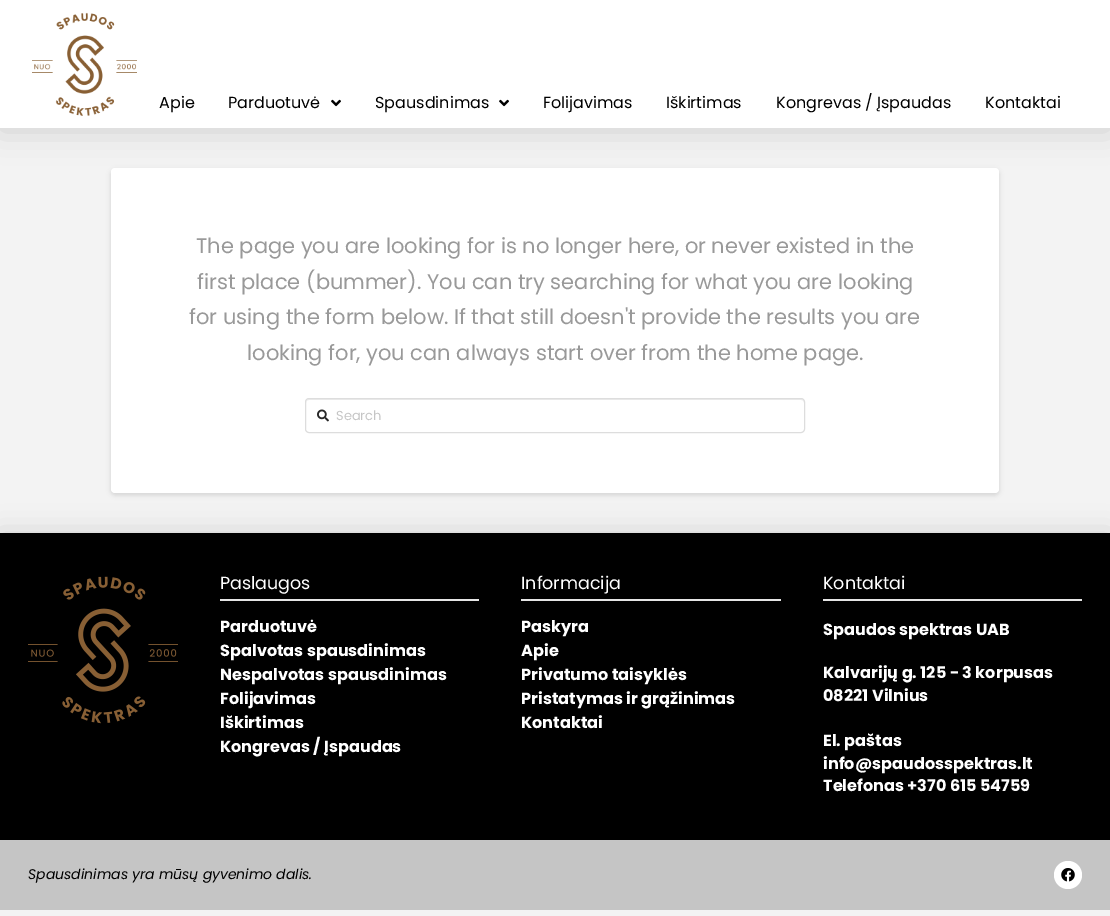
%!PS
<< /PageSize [1110 916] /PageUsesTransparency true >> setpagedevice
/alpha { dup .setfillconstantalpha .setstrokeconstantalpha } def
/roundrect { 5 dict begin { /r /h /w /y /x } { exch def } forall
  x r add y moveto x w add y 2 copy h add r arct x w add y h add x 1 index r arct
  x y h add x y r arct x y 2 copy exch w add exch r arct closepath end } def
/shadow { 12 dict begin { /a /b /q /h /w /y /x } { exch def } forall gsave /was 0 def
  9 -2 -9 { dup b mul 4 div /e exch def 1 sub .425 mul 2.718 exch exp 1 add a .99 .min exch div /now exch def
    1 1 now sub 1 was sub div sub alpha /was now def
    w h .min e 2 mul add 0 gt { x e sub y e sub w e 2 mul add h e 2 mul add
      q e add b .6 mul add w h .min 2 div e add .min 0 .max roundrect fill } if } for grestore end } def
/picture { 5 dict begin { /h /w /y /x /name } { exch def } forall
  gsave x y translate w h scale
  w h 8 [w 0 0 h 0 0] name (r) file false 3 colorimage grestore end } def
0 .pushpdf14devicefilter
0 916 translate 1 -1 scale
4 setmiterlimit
0.953 setgray
0 0 1110 916 rectfill
0 setgray
111 170 888 325 4 2.5 0.13 shadow
1 setgray
111 168 888 325 4 roundrect fill
0 setgray
0 2 1110 128 0 16 0.15 shadow
1 setgray
0 0 1110 128 rectfill
(img1.rgb) 32 12 105 104 picture
/Poppins-Regular [16 0 0 -16 0 0] selectfont
0 setgray
159 108 moveto (Apie) show
228 108 moveto (Parduotuvė) show
(img2.rgb) 331 99 10 8 picture
375 108 moveto (Spausdinimas) show
(img2.rgb) 499 99 10 8 picture
543 108 moveto (Folijavimas) show
666 108 moveto (Iškirtimas) show
776 108 moveto (Kongrevas / Įspaudas) show
985 108 moveto (Kontaktai) show
/Poppins-Regular [21 0 0 -21 0 0] selectfont
0.6 setgray
196 253 moveto (The page you are looking for is no longer here, or never existed in the) show
197 289 moveto (first place \(bummer\). You can try searching for what you are looking) show
189 324 moveto (for using the form below. If that still doesn't provide the results you are) show
247 360 moveto (looking for, you can always start over from the home page.) show
0.925 setgray
newpath 309 400 moveto 801 400 lineto 803 400 804 401 804 403 curveto 804 401 803 399 801 399 curveto 309 399 lineto 307 399 306 401 306 403 curveto 306 401 307 400 309 400 curveto closepath fill
0.867 setgray
305.5 398.5 499 34 3.5 roundrect stroke
(img3.rgb) 317 409 12 13 picture
/Poppins-Regular [13 0 0 -13 0 0] selectfont
0.773 setgray
336 420 moveto (Search) show
0 setgray
0 535 1110 307 0 14 0.15 shadow
0 533 1110 307 rectfill
(img4.rgb) 28 576 150 148 picture
0.898 setgray
220 599 259 2 rectfill
/Poppins-Regular [17.5 0 0 -17.5 0 0] selectfont
1 setgray
220 589 moveto (Paslaugos) show
/Poppins-Bold [16.1 0 0 -16.1 0 0] selectfont
220 632 moveto (Parduotuvė) show
220 656 moveto (Spalvotas spausdinimas) show
220 680 moveto (Nespalvotas spausdinimas) show
220 704 moveto (Folijavimas) show
220 728 moveto (Iškirtimas) show
220 752 moveto (Kongrevas / Įspaudas) show
0.898 setgray
521 599 260 2 rectfill
/Poppins-Regular [17.5 0 0 -17.5 0 0] selectfont
1 setgray
521 589 moveto (Informacija) show
/Poppins-Bold [16.1 0 0 -16.1 0 0] selectfont
521 632 moveto (Paskyra) show
521 656 moveto (Apie) show
521 680 moveto (Privatumo taisyklės) show
521 704 moveto (Pristatymas ir grąžinimas) show
521 728 moveto (Kontaktai) show
0.898 setgray
823 599 259 2 rectfill
/Poppins-Regular [17.5 0 0 -17.5 0 0] selectfont
1 setgray
823 589 moveto (Kontaktai) show
/Poppins-Bold [16.1 0 0 -16.1 0 0] selectfont
823 635 moveto (Spaudos spektras UAB) show
823 678 moveto (Kalvarijų g. 125 - 3 korpusas) show
823 701 moveto (08221 Vilnius) show
823 746 moveto (El. paštas) show
823 769 moveto (info@spaudosspektras.lt) show
823 791 moveto (Telefonas +370 615 54759) show
0.773 setgray
0 840 1110 70 rectfill
/Poppins-Italic [14 0 0 -14 0 0] selectfont
0 setgray
28 879 moveto (Spausdinimas yra mūsų gyvenimo dalis.) show
1 setgray
newpath 1068 875 14 0 360 arc closepath fill
(img5.rgb) 1061 868 14 14 picture
.poppdf14devicefilter showpage
